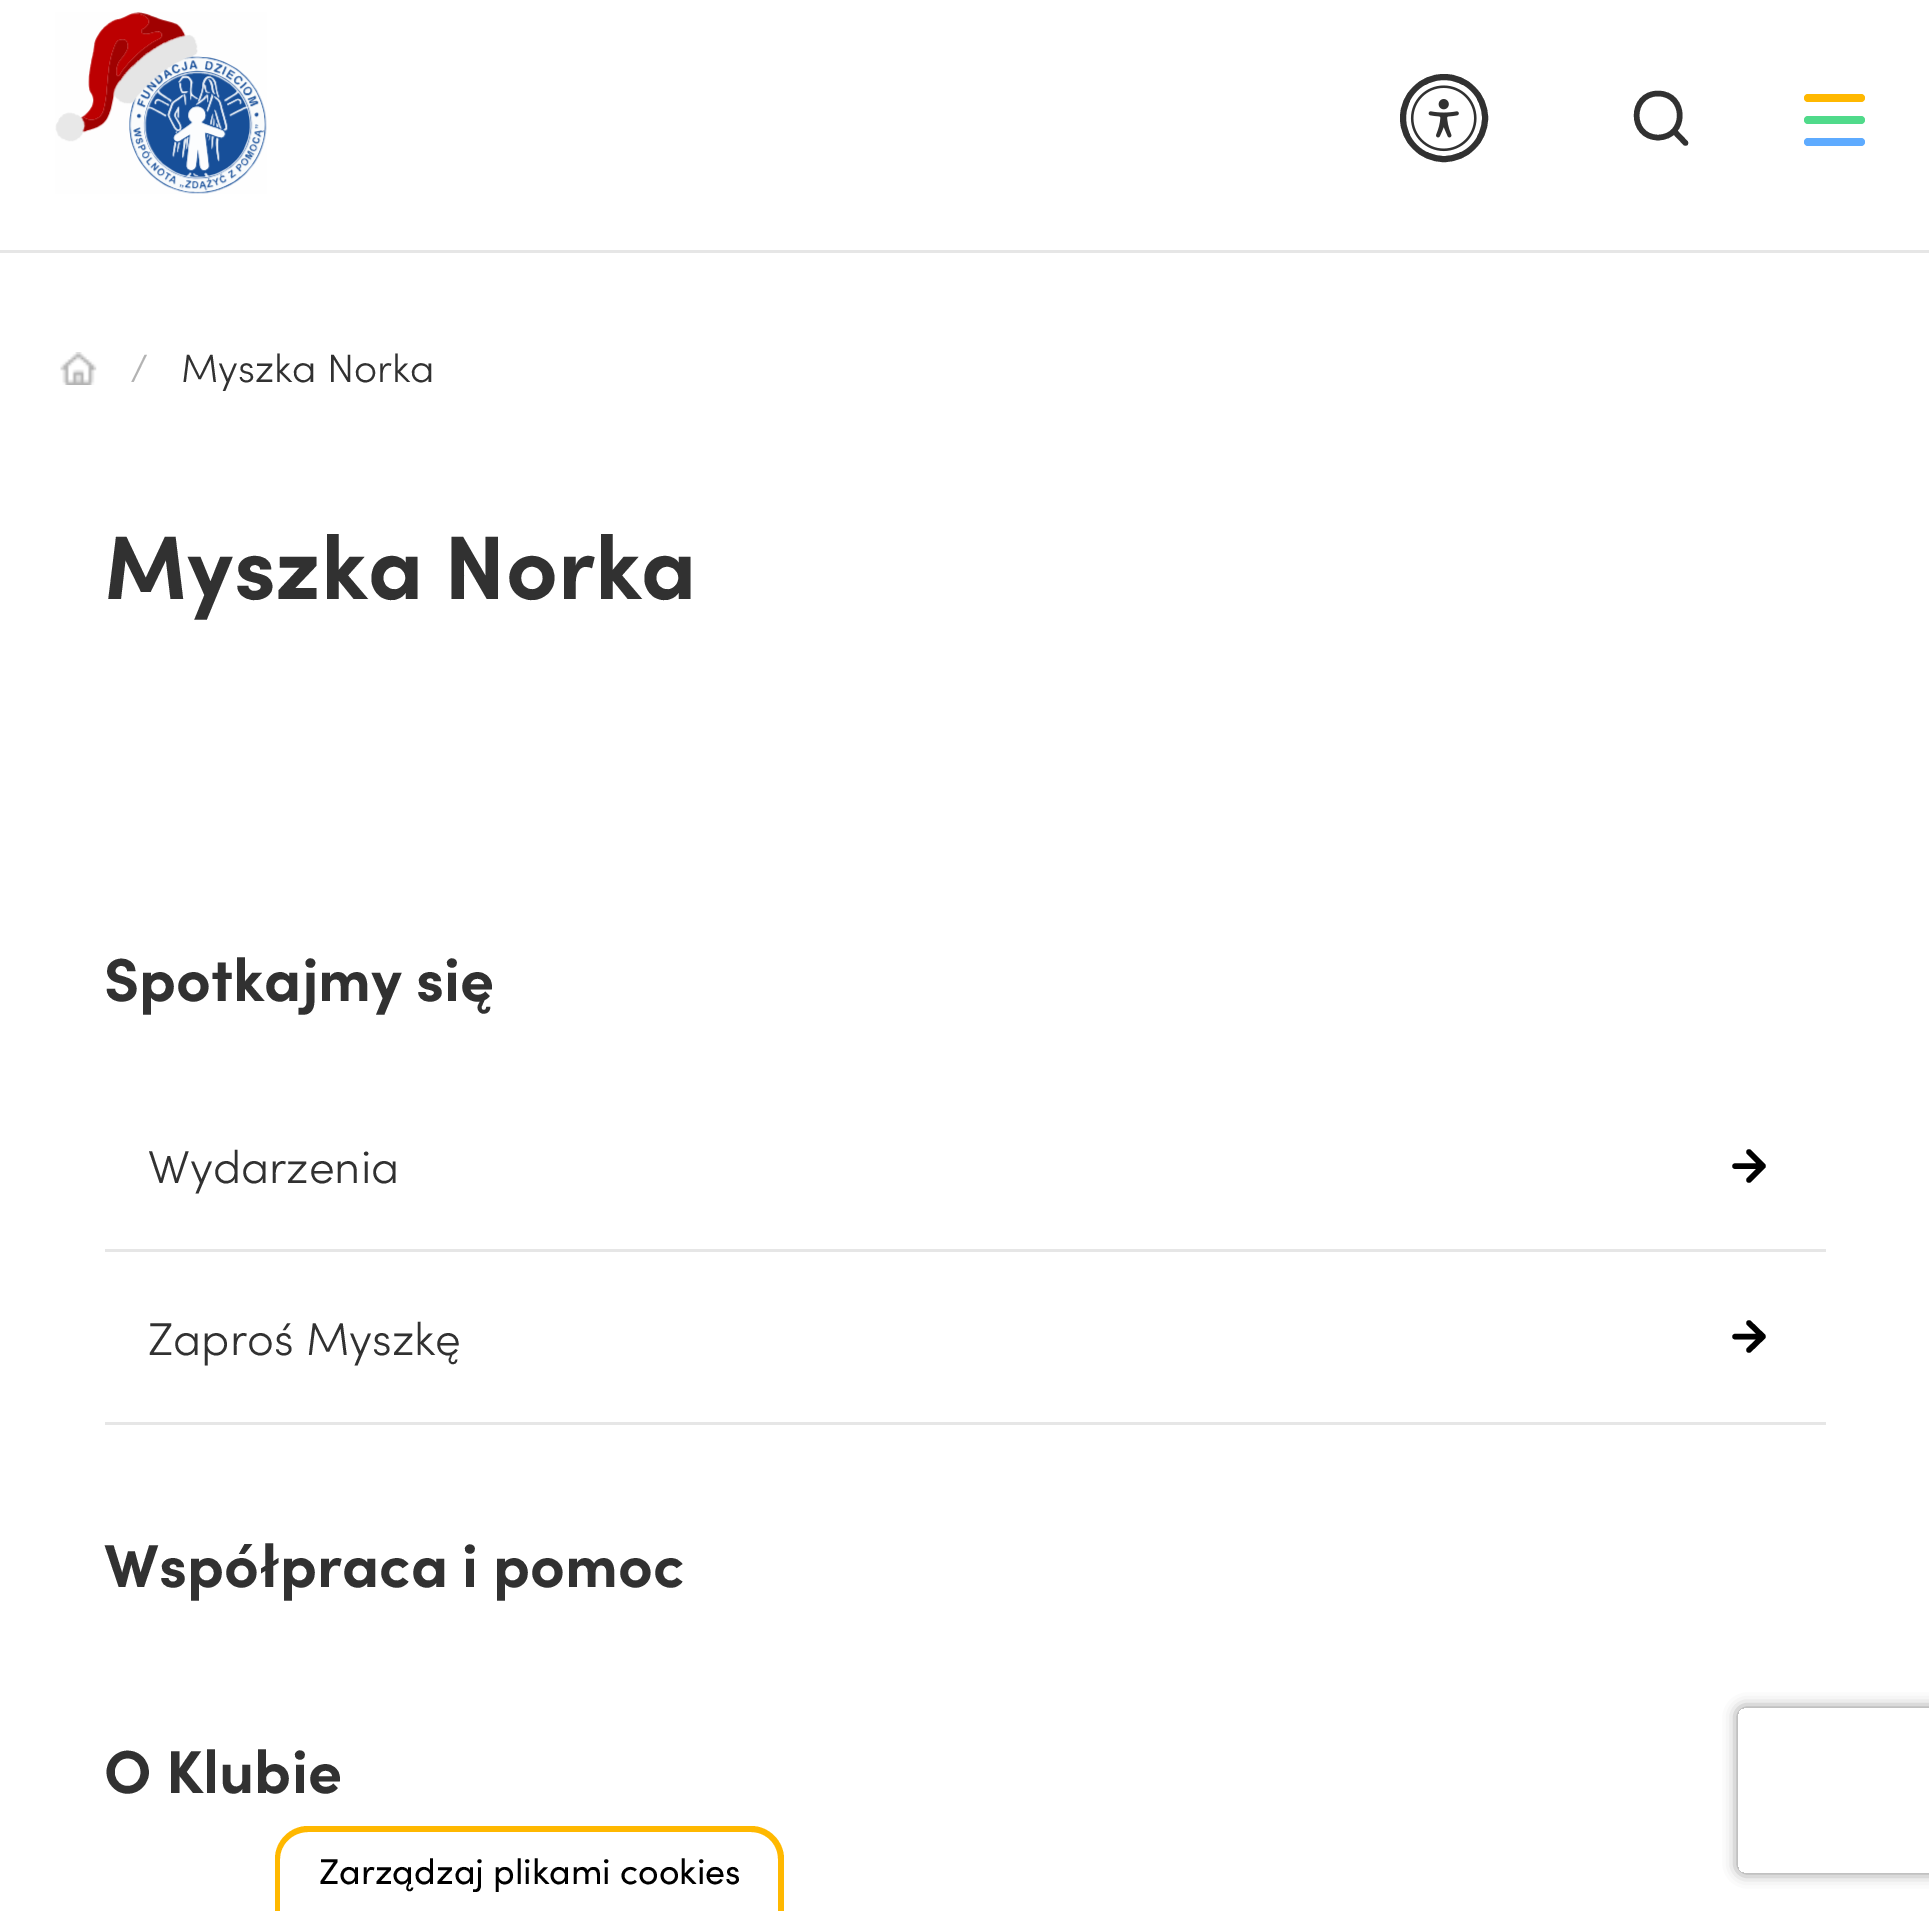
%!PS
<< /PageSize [1929 1911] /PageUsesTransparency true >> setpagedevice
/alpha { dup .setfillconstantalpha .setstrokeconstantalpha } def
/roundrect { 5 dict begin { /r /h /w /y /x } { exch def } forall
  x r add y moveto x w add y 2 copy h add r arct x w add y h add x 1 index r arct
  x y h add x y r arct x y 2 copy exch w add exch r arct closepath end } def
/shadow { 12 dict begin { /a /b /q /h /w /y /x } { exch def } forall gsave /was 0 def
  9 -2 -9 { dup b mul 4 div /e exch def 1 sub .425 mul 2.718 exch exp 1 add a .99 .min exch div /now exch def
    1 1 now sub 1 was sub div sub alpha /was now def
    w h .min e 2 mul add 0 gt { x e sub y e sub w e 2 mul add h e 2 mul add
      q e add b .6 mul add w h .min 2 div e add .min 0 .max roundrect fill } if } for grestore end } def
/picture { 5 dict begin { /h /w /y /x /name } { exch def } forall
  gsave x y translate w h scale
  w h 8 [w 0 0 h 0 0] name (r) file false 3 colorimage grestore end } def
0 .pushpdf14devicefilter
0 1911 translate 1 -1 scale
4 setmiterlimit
1 setgray
0 0 1929 1911 rectfill
0.902 setgray
0 250 1929 3 rectfill
(img1.rgb) 55 12 212 182 picture
0.192 setgray
6 setlinewidth
newpath 1444 118 41 0 360 arc closepath stroke
(img2.rgb) 1410 85 67 67 picture
5.5 setlinewidth
1 setlinecap
1 setlinejoin
newpath 1685.5 143 moveto 1674 131 lineto 1658 137.5 moveto 1687 137.5 1687 93.5 1658 93.5 curveto 1629.5 93.5 1629.5 137.5 1658 137.5 curveto closepath stroke
1 0.722 0 setrgbcolor
1804 94 61 8 4 roundrect fill
0.314 0.855 0.541 setrgbcolor
1804 116 61 8 4 roundrect fill
0.369 0.671 1 setrgbcolor
1804 138 61 8 4 roundrect fill
(img3.rgb) 60 352 37 33 picture
/Sofia-Light [39.5 0 0 -39.5 0 0] selectfont
0.702 setgray
130 382 moveto (/) show
0.192 setgray
181 382 moveto (Myszka Norka) show
/Sofia-Bold [90.25 0 0 -90.25 0 0] selectfont
104 599 moveto (Myszka Norka) show
/Sofia-Bold [60.6 0 0 -60.6 0 0] selectfont
104 1001 moveto (Spotkajmy się) show
0.902 setgray
105 1249 1721 3 rectfill
/Sofia-Light [46 0 0 -46 0 0] selectfont
0.192 setgray
148 1183 moveto (Wydarzenia) show
0 setgray
newpath 1735 1166 moveto 1763 1166 lineto 1749 1152 moveto 1763 1166 lineto 1749 1180 lineto stroke
0.902 setgray
105 1422 1721 3 rectfill
0.192 setgray
148 1355 moveto (Zaproś Myszkę) show
0 setgray
newpath 1735 1336.5 moveto 1763 1336.5 lineto 1749 1323 moveto 1763 1336.5 lineto 1749 1350 lineto stroke
/Sofia-Bold [60.6 0 0 -60.6 0 0] selectfont
0.192 setgray
104 1587 moveto (Współpraca i pomoc) show
104 1793 moveto (O Klubie) show
gsave
newpath 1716 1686 moveto 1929 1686 lineto 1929 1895 lineto 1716 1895 lineto closepath 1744 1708 moveto 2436 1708 lineto 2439.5 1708 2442 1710.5 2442 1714 curveto 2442 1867 lineto 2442 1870.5 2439.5 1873 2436 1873 curveto 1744 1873 lineto 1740.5 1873 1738 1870.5 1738 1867 curveto 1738 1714 lineto 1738 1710.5 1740.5 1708 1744 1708 curveto closepath eoclip newpath
0.502 setgray
1738 1708 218 165 6 7 1 shadow
grestore
1 0.722 0 setrgbcolor
newpath 308 1826 moveto 751 1826 lineto 769 1826 784 1841 784 1859 curveto 784 1911 lineto 275 1911 lineto 275 1859 lineto 275 1841 290 1826 308 1826 curveto closepath 308 1832 moveto 751 1832 lineto 766 1832 778 1844 778 1859 curveto 778 1911 lineto 280 1911 lineto 280 1859 lineto 280 1844 293 1832 308 1832 curveto closepath eofill
/Sofia-Regular [35.75 0 0 -35.75 0 0] selectfont
0 setgray
319 1884 moveto (Zarządzaj plikami cookies) show
.poppdf14devicefilter showpage
